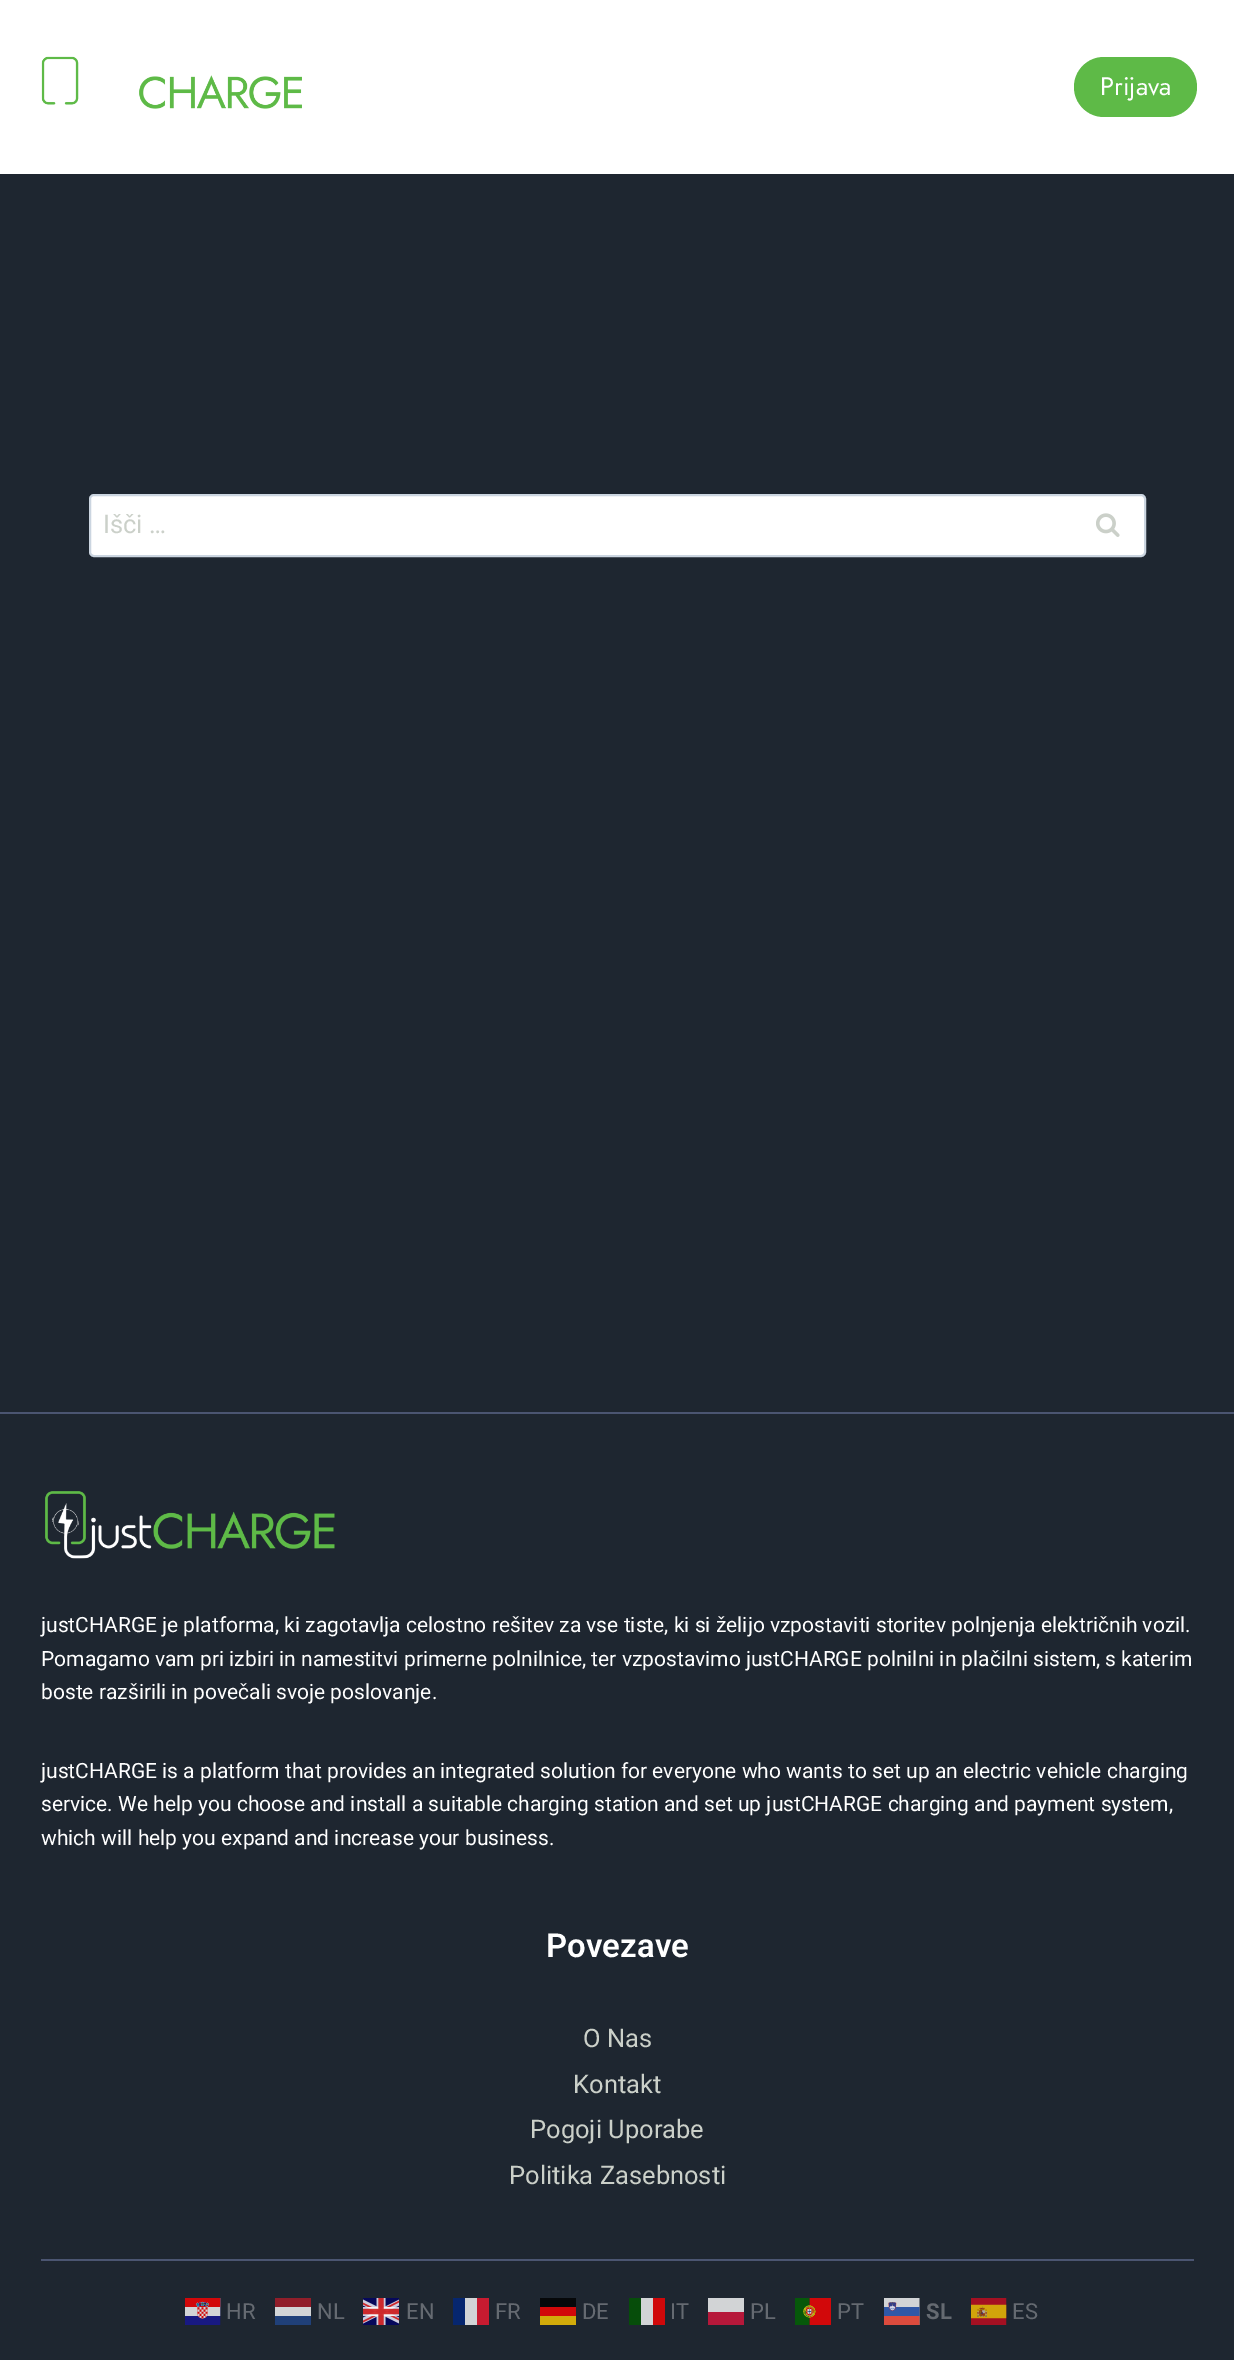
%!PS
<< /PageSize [1234 2360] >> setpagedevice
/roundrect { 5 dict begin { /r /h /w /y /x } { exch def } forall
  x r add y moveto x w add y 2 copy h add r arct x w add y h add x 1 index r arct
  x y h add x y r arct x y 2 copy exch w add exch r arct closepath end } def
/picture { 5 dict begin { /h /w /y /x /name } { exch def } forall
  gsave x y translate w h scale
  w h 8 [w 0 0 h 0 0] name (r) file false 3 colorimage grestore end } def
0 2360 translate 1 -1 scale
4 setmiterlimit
0.118 0.149 0.188 setrgbcolor
0 0 1234 2360 rectfill
1 setgray
0 0 1234 174 rectfill
(img1.rgb) 41 56 261 53 picture
0.369 0.729 0.278 setrgbcolor
1074 57 123 60 30 roundrect fill
/Jost-Regular [25.5 0 0 -25.5 0 0] selectfont
1 setgray
1100 95 moveto (Prijava) show
90 495 1055 61 4 roundrect gsave fill grestore
0.796 0.835 0.878 setrgbcolor
2 setlinewidth
stroke
/Roboto-Regular [25.5 0 0 -25.5 0 0] selectfont
0.796 0.816 0.788 setrgbcolor
103 533 moveto (Išči …) show
(img2.rgb) 1096 513 24 24 picture
0.294 0.333 0.443 setrgbcolor
0 1412 1234 2 rectfill
(img3.rgb) 45 1491 290 68 picture
/Roboto-Regular [21 0 0 -21 0 0] selectfont
1 setgray
41 1632 moveto (justCHARGE je platforma, ki zagotavlja celostno rešitev za vse tiste, ki si želijo vzpostaviti storitev polnjenja električnih vozil.) show
41 1666 moveto (Pomagamo vam pri izbiri in namestitvi primerne polnilnice, ter vzpostavimo justCHARGE polnilni in plačilni sistem, s katerim) show
41 1699 moveto (boste razširili in povečali svoje poslovanje.) show
41 1778 moveto (justCHARGE is a platform that provides an integrated solution for everyone who wants to set up an electric vehicle charging) show
41 1811 moveto (service. We help you choose and install a suitable charging station and set up justCHARGE charging and payment system,) show
41 1845 moveto (which will help you expand and increase your business.) show
/Roboto-SemiBold [33 0 0 -33 0 0] selectfont
546 1957 moveto (Povezave) show
/Roboto-Regular [25.5 0 0 -25.5 0 0] selectfont
0.796 0.816 0.788 setrgbcolor
583 2047 moveto (O Nas) show
573 2093 moveto (Kontakt) show
530 2138 moveto (Pogoji Uporabe) show
509 2184 moveto (Politika Zasebnosti) show
0.294 0.333 0.443 setrgbcolor
41 2259 1153 2 rectfill
(img4.rgb) 185 2298 36 27 picture
/Roboto-Regular [22 0 0 -22 0 0] selectfont
0.396 0.416 0.443 setrgbcolor
226 2319 moveto (HR) show
317 2319 moveto (NL) show
0.824 0.831 0.839 setrgbcolor
275 2307 36 9 rectfill
0.125 0.251 0.475 setrgbcolor
275 2316 36 9 rectfill
0.569 0.118 0.165 setrgbcolor
275 2298 36 9 rectfill
(img5.rgb) 363 2298 36 27 picture
0.396 0.416 0.443 setrgbcolor
406 2319 moveto (EN) show
495 2319 moveto (FR) show
0.824 0.831 0.839 setrgbcolor
465 2298 12 27 rectfill
0.024 0.149 0.435 setrgbcolor
453 2298 12 27 rectfill
0.784 0.106 0.188 setrgbcolor
477 2298 12 27 rectfill
0.396 0.416 0.443 setrgbcolor
582 2319 moveto (DE) show
0.824 0.671 0.039 setrgbcolor
540 2316 36 9 rectfill
0.024 0.031 0.039 setrgbcolor
540 2298 36 9 rectfill
0.824 0.031 0.039 setrgbcolor
540 2307 36 9 rectfill
0.396 0.416 0.443 setrgbcolor
670 2319 moveto (IT) show
0.824 0.831 0.839 setrgbcolor
641 2298 12 27 rectfill
0.024 0.302 0.039 setrgbcolor
629 2298 12 27 rectfill
0.816 0.031 0.039 setrgbcolor
653 2298 12 27 rectfill
0.396 0.416 0.443 setrgbcolor
750 2319 moveto (PL) show
0.824 0.831 0.839 setrgbcolor
708 2298 36 14 rectfill
0.714 0.094 0.227 setrgbcolor
708 2312 36 13 rectfill
(img6.rgb) 795 2298 36 27 picture
0.396 0.416 0.443 setrgbcolor
837 2319 moveto (PT) show
(img7.rgb) 884 2298 36 27 picture
/Roboto-Bold [22 0 0 -22 0 0] selectfont
926 2319 moveto (SL) show
(img8.rgb) 971 2298 36 27 picture
/Roboto-Regular [22 0 0 -22 0 0] selectfont
1012 2319 moveto (ES) show
showpage
